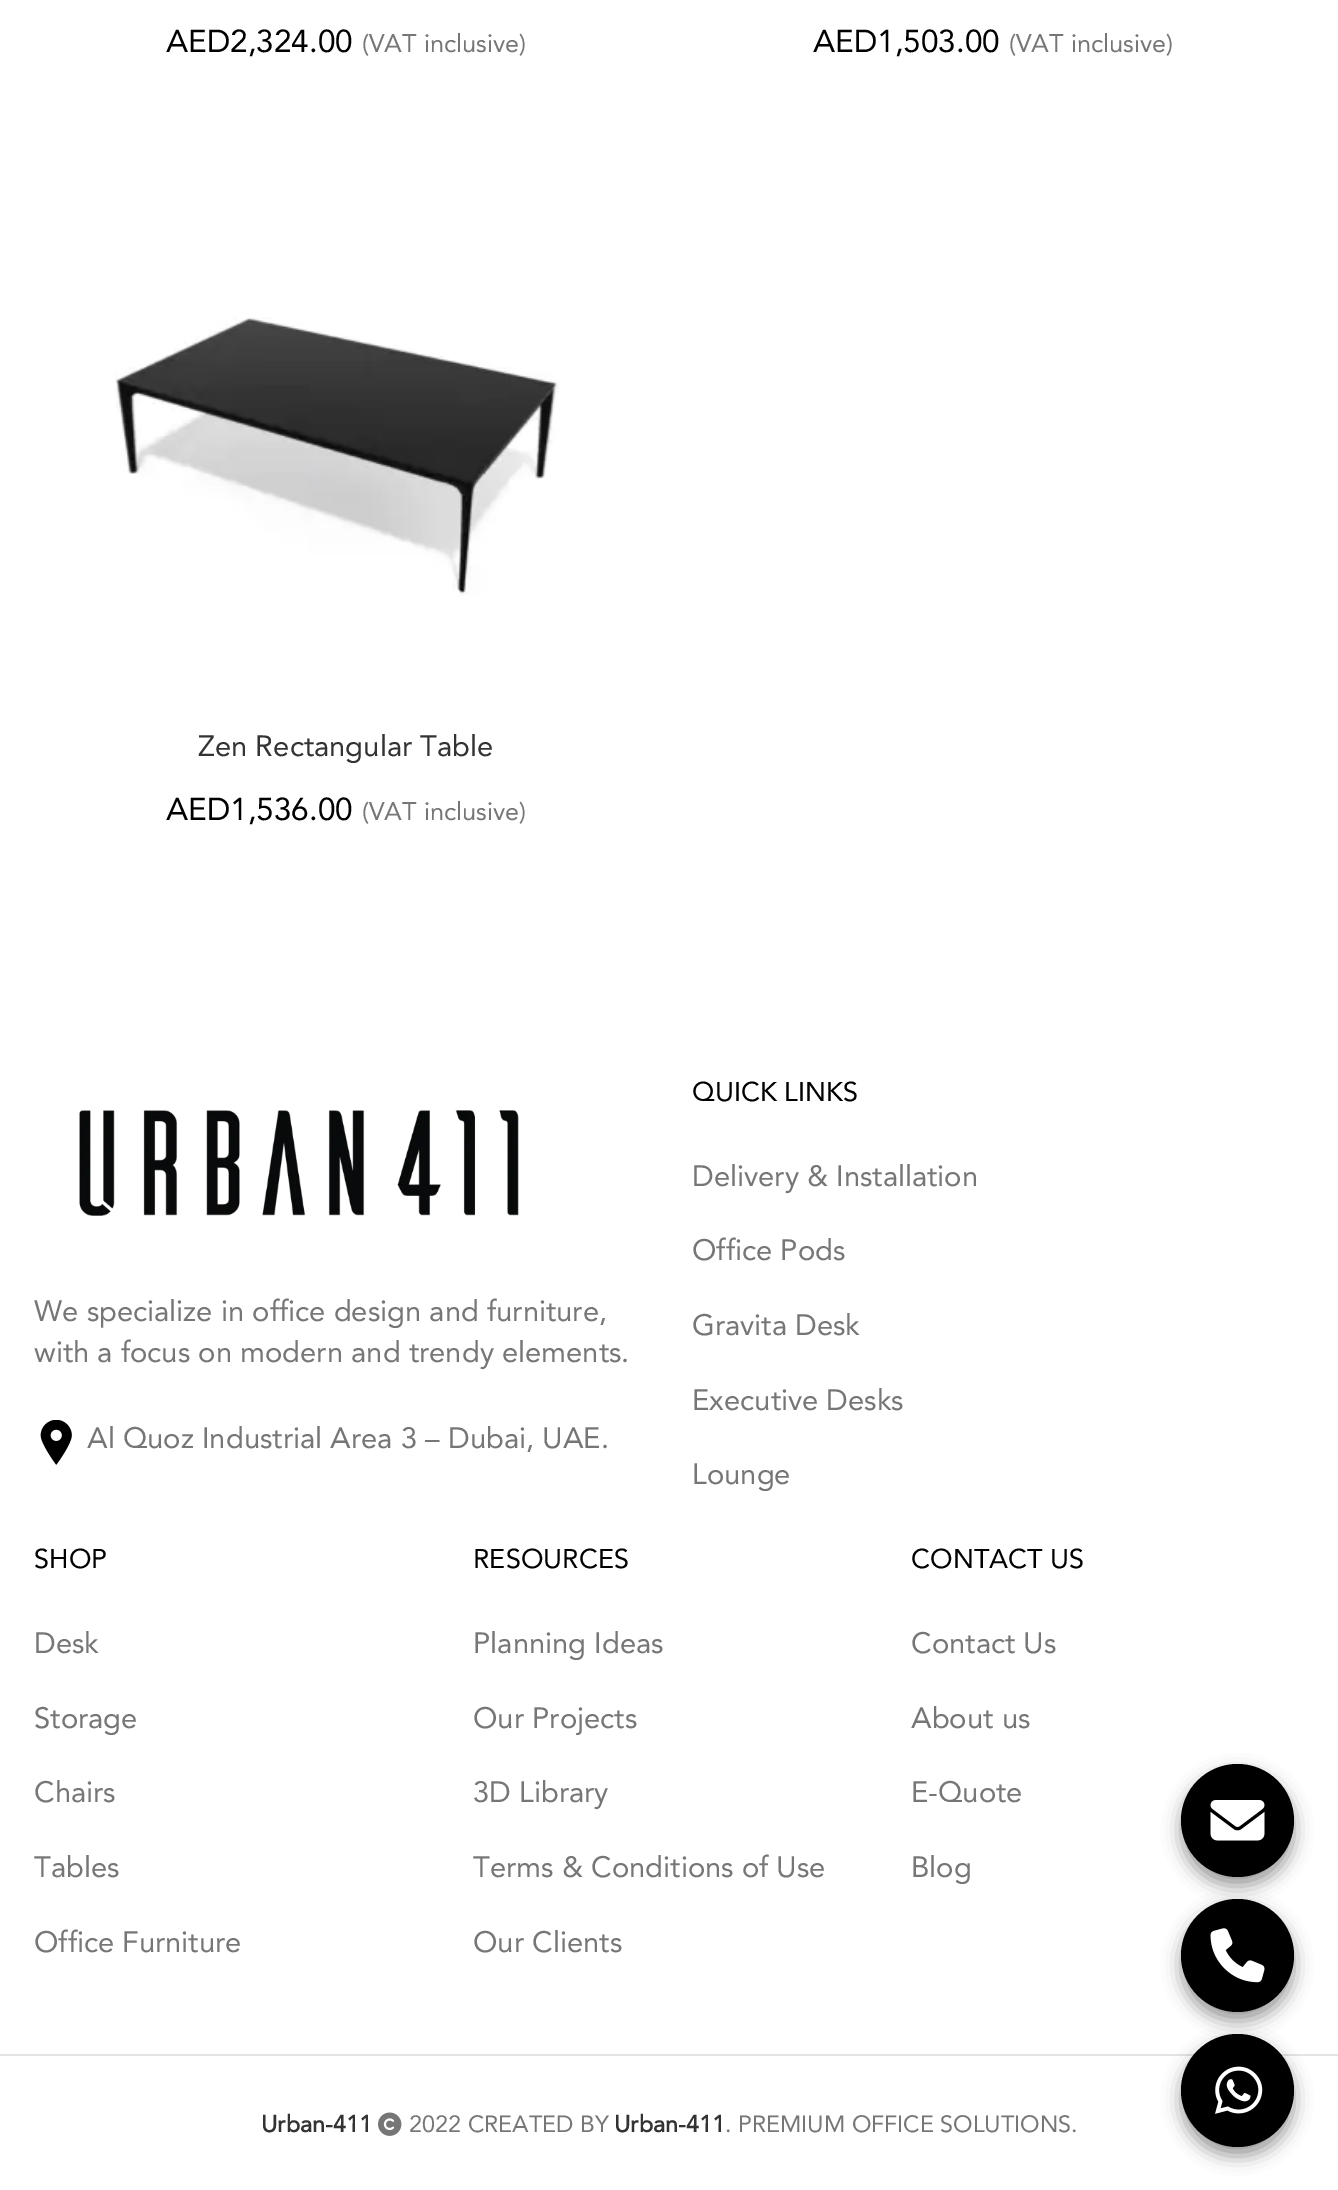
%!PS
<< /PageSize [1338 2190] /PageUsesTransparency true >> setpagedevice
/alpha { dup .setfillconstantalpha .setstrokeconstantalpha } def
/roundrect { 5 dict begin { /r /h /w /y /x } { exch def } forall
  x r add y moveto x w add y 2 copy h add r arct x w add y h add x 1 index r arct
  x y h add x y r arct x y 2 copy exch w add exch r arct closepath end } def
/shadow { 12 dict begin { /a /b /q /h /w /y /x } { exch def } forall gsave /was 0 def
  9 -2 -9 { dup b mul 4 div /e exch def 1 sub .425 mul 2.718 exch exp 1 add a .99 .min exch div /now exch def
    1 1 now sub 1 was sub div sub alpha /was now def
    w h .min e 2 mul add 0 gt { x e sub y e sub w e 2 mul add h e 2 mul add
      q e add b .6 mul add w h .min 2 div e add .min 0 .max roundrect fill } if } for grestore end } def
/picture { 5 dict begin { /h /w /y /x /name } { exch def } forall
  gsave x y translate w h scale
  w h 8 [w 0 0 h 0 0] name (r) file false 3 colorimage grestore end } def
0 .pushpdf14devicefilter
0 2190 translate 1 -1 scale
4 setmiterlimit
1 setgray
0 0 1338 2190 rectfill
/Avenir-Regular [31.5 0 0 -31.5 0 0] selectfont
0 setgray
166 52 moveto (AED2,324.00) show
/Avenir-Regular [25.25 0 0 -25.25 0 0] selectfont
0.463 setgray
362 52 moveto (\(VAT inclusive\)) show
/Avenir-Regular [31.5 0 0 -31.5 0 0] selectfont
0 setgray
813 52 moveto (AED1,503.00) show
/Avenir-Regular [25.25 0 0 -25.25 0 0] selectfont
0.463 setgray
1009 52 moveto (\(VAT inclusive\)) show
(img1.rgb) 115 317 444 279 picture
/Avenir-Regular [29.25 0 0 -29.25 0 0] selectfont
0.2 setgray
198 756 moveto (Zen Rectangular Table) show
/Avenir-Regular [31.5 0 0 -31.5 0 0] selectfont
0 setgray
166 820 moveto (AED1,536.00) show
/Avenir-Regular [25.25 0 0 -25.25 0 0] selectfont
0.463 setgray
362 820 moveto (\(VAT inclusive\)) show
(img2.rgb) 79 1110 440 106 picture
/Avenir-Regular [29.25 0 0 -29.25 0 0] selectfont
34 1321 moveto (We specialize in office design and furniture,) show
34 1362 moveto (with a focus on modern and trendy elements.) show
(img3.rgb) 40 1420 32 45 picture
87 1448 moveto (Al Quoz Industrial Area 3 – Dubai, UAE.) show
/Avenir-Regular [27 0 0 -27 0 0] selectfont
0 setgray
692 1101 moveto (QUICK LINKS) show
/Avenir-Regular [29.25 0 0 -29.25 0 0] selectfont
0.463 setgray
692 1186 moveto (Delivery & Installation) show
692 1260 moveto (Office Pods) show
692 1335 moveto (Gravita Desk) show
692 1410 moveto (Executive Desks) show
692 1484 moveto (Lounge) show
/Avenir-Regular [27 0 0 -27 0 0] selectfont
0 setgray
34 1568 moveto (SHOP) show
/Avenir-Regular [29.25 0 0 -29.25 0 0] selectfont
0.463 setgray
34 1653 moveto (Desk) show
34 1728 moveto (Storage) show
34 1802 moveto (Chairs) show
34 1877 moveto (Tables) show
34 1952 moveto (Office Furniture) show
/Avenir-Regular [27 0 0 -27 0 0] selectfont
0 setgray
473 1568 moveto (RESOURCES) show
/Avenir-Regular [29.25 0 0 -29.25 0 0] selectfont
0.463 setgray
473 1653 moveto (Planning Ideas) show
473 1728 moveto (Our Projects) show
473 1802 moveto (3D Library) show
473 1877 moveto (Terms & Conditions of Use) show
473 1952 moveto (Our Clients) show
/Avenir-Regular [27 0 0 -27 0 0] selectfont
0 setgray
911 1568 moveto (CONTACT US) show
/Avenir-Regular [29.25 0 0 -29.25 0 0] selectfont
0.463 setgray
911 1653 moveto (Contact Us) show
911 1728 moveto (About us) show
911 1802 moveto (E-Quote) show
911 1877 moveto (Blog) show
0.894 setgray
0 2054 1338 2 rectfill
/Avenir-Bold [23.4 0 0 -23.4 0 0] selectfont
0.2 setgray
261 2132 moveto (Urban-411) show
(img4.rgb) 378 2112 24 24 picture
/Avenir-Regular [23.4 0 0 -23.4 0 0] selectfont
0.463 setgray
409 2132 moveto (2022 CREATED BY) show
/Avenir-Bold [23.4 0 0 -23.4 0 0] selectfont
0.2 setgray
614 2132 moveto (Urban-411) show
/Avenir-Regular [23.4 0 0 -23.4 0 0] selectfont
0.463 setgray
725 2132 moveto (. PREMIUM OFFICE SOLUTIONS.) show
0 setgray
1181 1773 113 113 56.5 9 0.4 shadow
newpath 1237.5 1820.5 56.5 0 360 arc closepath fill
(img5.rgb) 1210 1800 55 41 picture
1181 1908 113 113 56.5 9 0.4 shadow
newpath 1237.5 1955.5 56.5 0 360 arc closepath fill
(img6.rgb) 1210 1928 55 55 picture
1181 2043 113 113 56.5 9 0.4 shadow
newpath 1237.5 2090.5 56.5 0 360 arc closepath fill
(img7.rgb) 1215 2066 48 48 picture
.poppdf14devicefilter showpage
